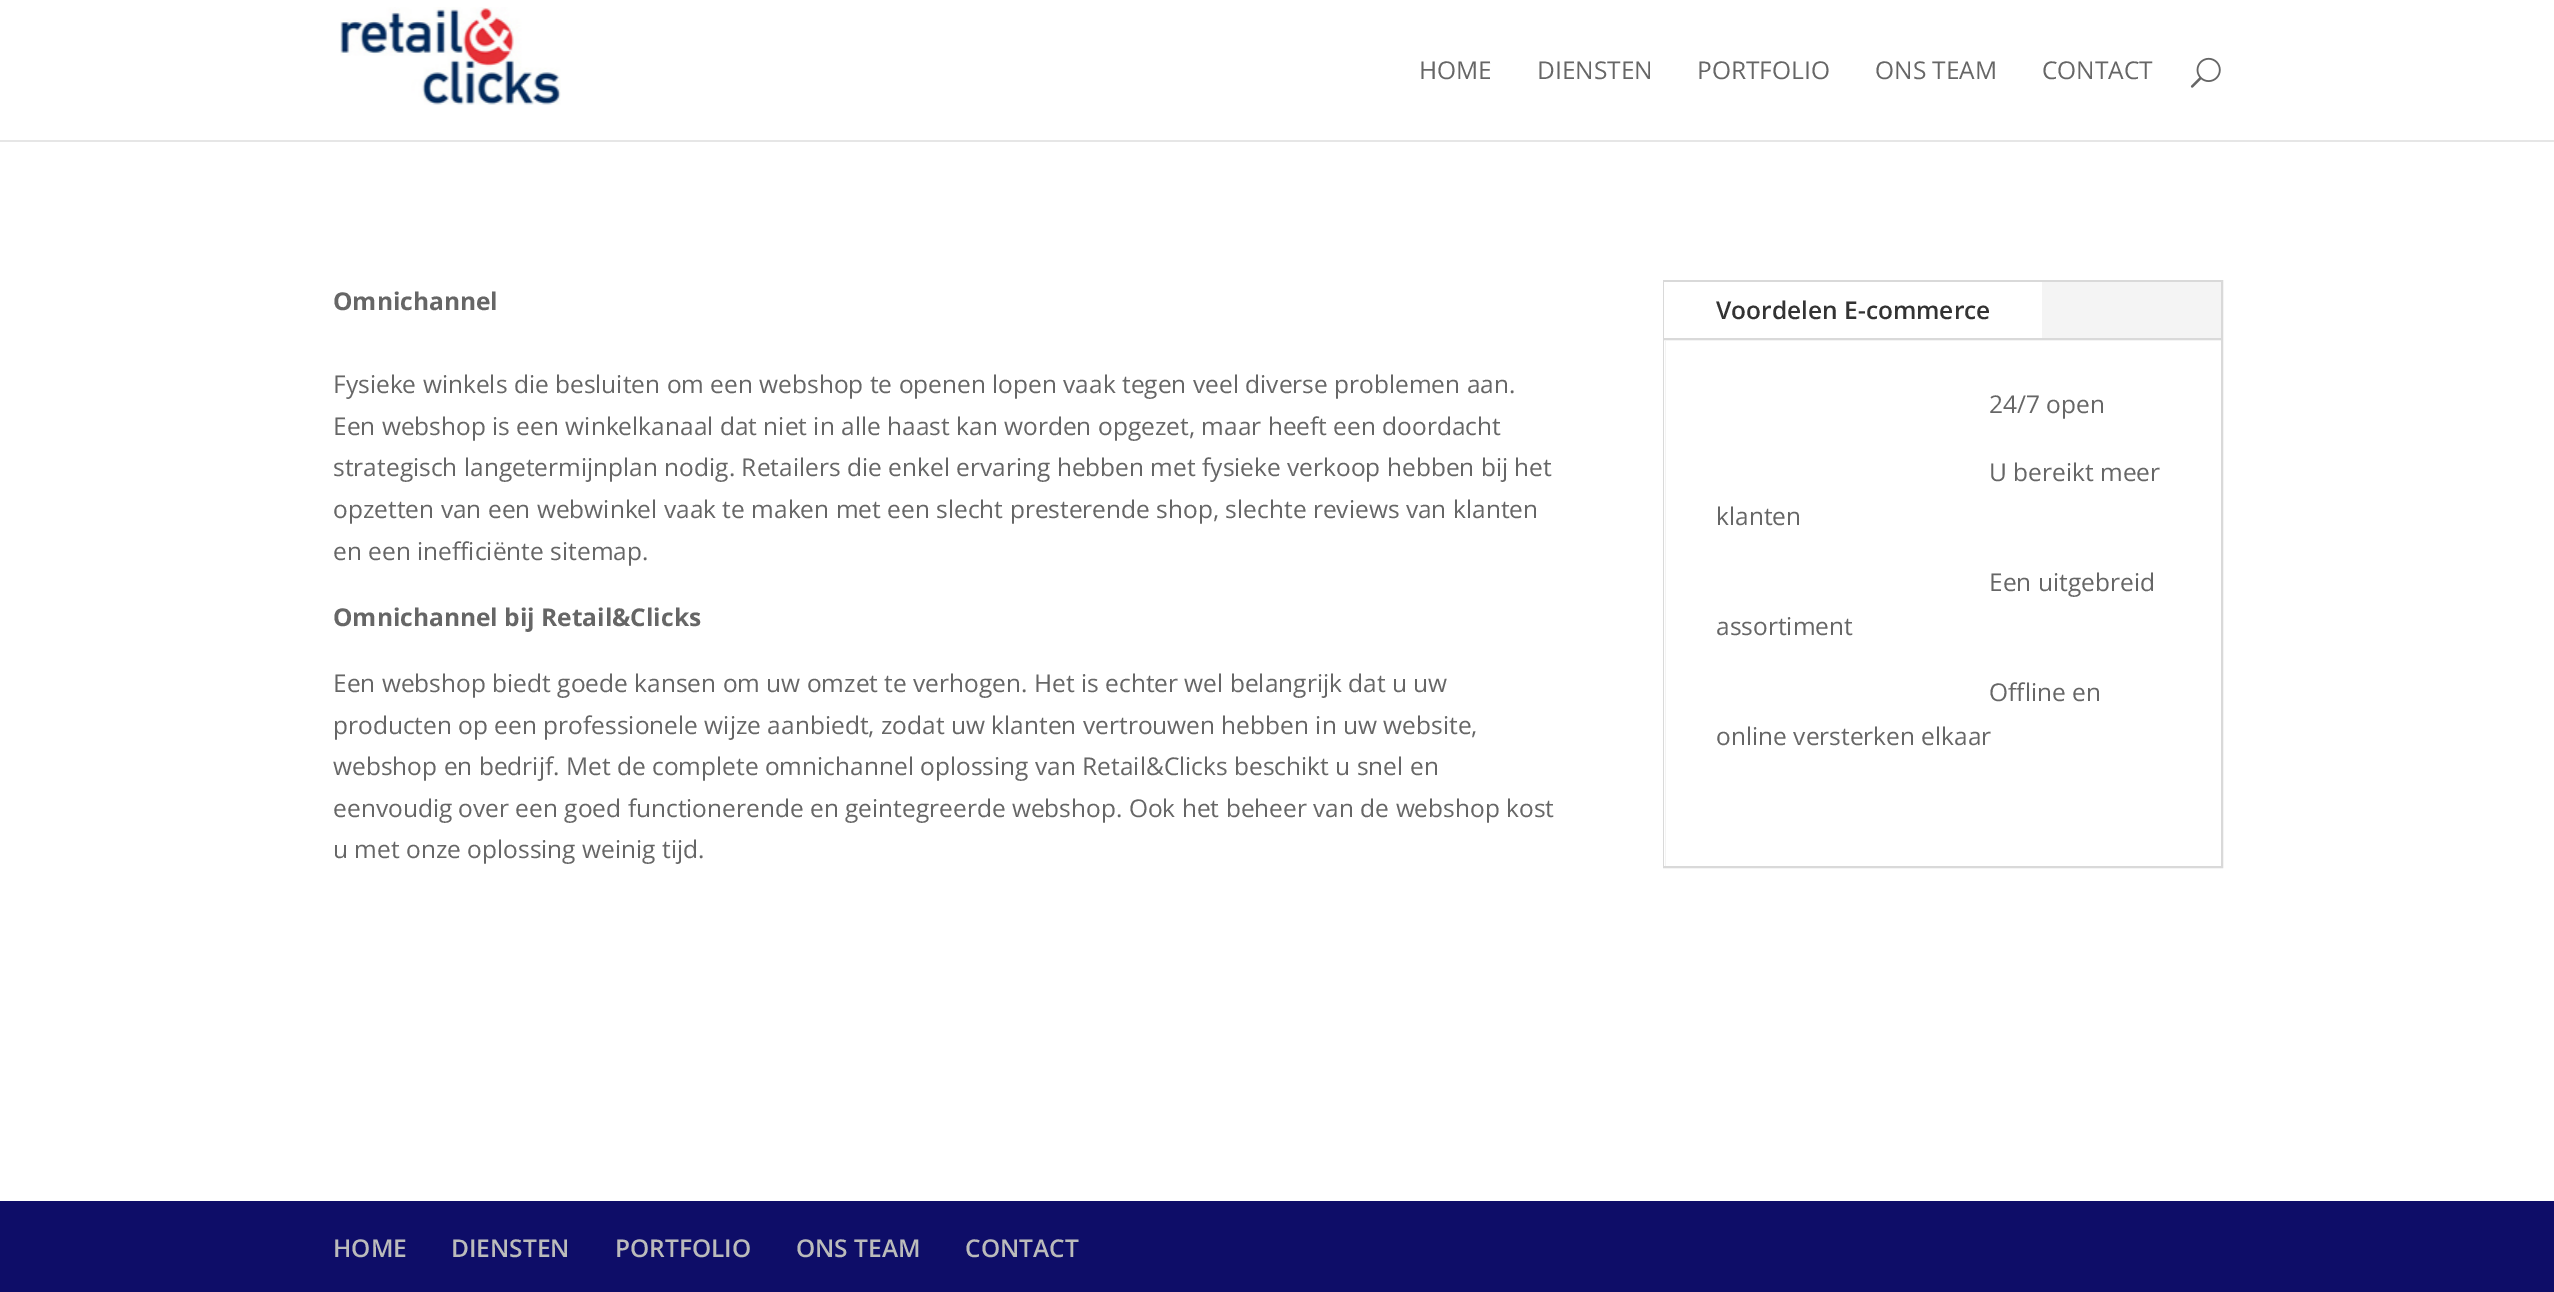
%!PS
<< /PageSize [2554 1292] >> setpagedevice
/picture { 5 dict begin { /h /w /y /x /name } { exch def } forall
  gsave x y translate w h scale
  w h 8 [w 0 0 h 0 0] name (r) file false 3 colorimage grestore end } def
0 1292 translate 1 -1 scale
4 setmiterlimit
1 setgray
0 0 2554 1292 rectfill
0.902 setgray
0 140 2554 2 rectfill
(img1.rgb) 340 7 221 98 picture
/OpenSans-Regular [24.5 0 0 -24.5 0 0] selectfont
0.4 setgray
1419 79 moveto (HOME) show
1537 79 moveto (DIENSTEN) show
1697 79 moveto (PORTFOLIO) show
1875 79 moveto (ONS TEAM) show
2042 79 moveto (CONTACT) show
(img2.rgb) 2190 57 31 31 picture
/OpenSans-Bold [24.5 0 0 -24.5 0 0] selectfont
333 310 moveto (Omnichannel) show
/OpenSans-Regular [24.5 0 0 -24.5 0 0] selectfont
333 393 moveto (Fysieke winkels die besluiten om een webshop te openen lopen vaak tegen veel diverse problemen aan.) show
333 435 moveto (Een webshop is een winkelkanaal dat niet in alle haast kan worden opgezet, maar heeft een doordacht) show
333 476 moveto (strategisch langetermijnplan nodig. Retailers die enkel ervaring hebben met fysieke verkoop hebben bij het) show
333 518 moveto (opzetten van een webwinkel vaak te maken met een slecht presterende shop, slechte reviews van klanten) show
333 560 moveto (en een inefficiënte sitemap.) show
/OpenSans-Bold [24.5 0 0 -24.5 0 0] selectfont
333 626 moveto (Omnichannel bij Retail&Clicks) show
/OpenSans-Regular [24.5 0 0 -24.5 0 0] selectfont
333 692 moveto (Een webshop biedt goede kansen om uw omzet te verhogen. Het is echter wel belangrijk dat u uw) show
333 734 moveto (producten op een professionele wijze aanbiedt, zodat uw klanten vertrouwen hebben in uw website,) show
333 775 moveto (webshop en bedrijf. Met de complete omnichannel oplossing van Retail&Clicks beschikt u snel en) show
333 817 moveto (eenvoudig over een goed functionerende en geintegreerde webshop. Ook het beheer van de webshop kost) show
333 858 moveto (u met onze oplossing weinig tijd.) show
0.851 setgray
2 setlinewidth
1664 281 558 586 rectstroke
0.957 setgray
1664 282 557 59 rectfill
1 setgray
1664 282 378 56 rectfill
/OpenSans-SemiBold [24.5 0 0 -24.5 0 0] selectfont
0.2 setgray
1716 319 moveto (Voordelen E-commerce) show
0.851 setgray
1664 338 557 2 rectfill
1 setgray
1664 341 1 525 rectfill
/OpenSans-Regular [24.5 0 0 -24.5 0 0] selectfont
0.4 setgray
1989 413 moveto (24/7 open) show
1989 481 moveto (U bereikt meer) show
1716 525 moveto (klanten) show
1989 591 moveto (Een uitgebreid) show
1716 635 moveto (assortiment) show
1989 701 moveto (Offline en) show
1716 745 moveto (online versterken elkaar) show
0.055 0.051 0.408 setrgbcolor
0 1201 2554 91 rectfill
/OpenSans-SemiBold [24.5 0 0 -24.5 0 0] selectfont
0.733 setgray
333 1257 moveto (HOME) show
451 1257 moveto (DIENSTEN) show
615 1257 moveto (PORTFOLIO) show
796 1257 moveto (ONS TEAM) show
965 1257 moveto (CONTACT) show
showpage
